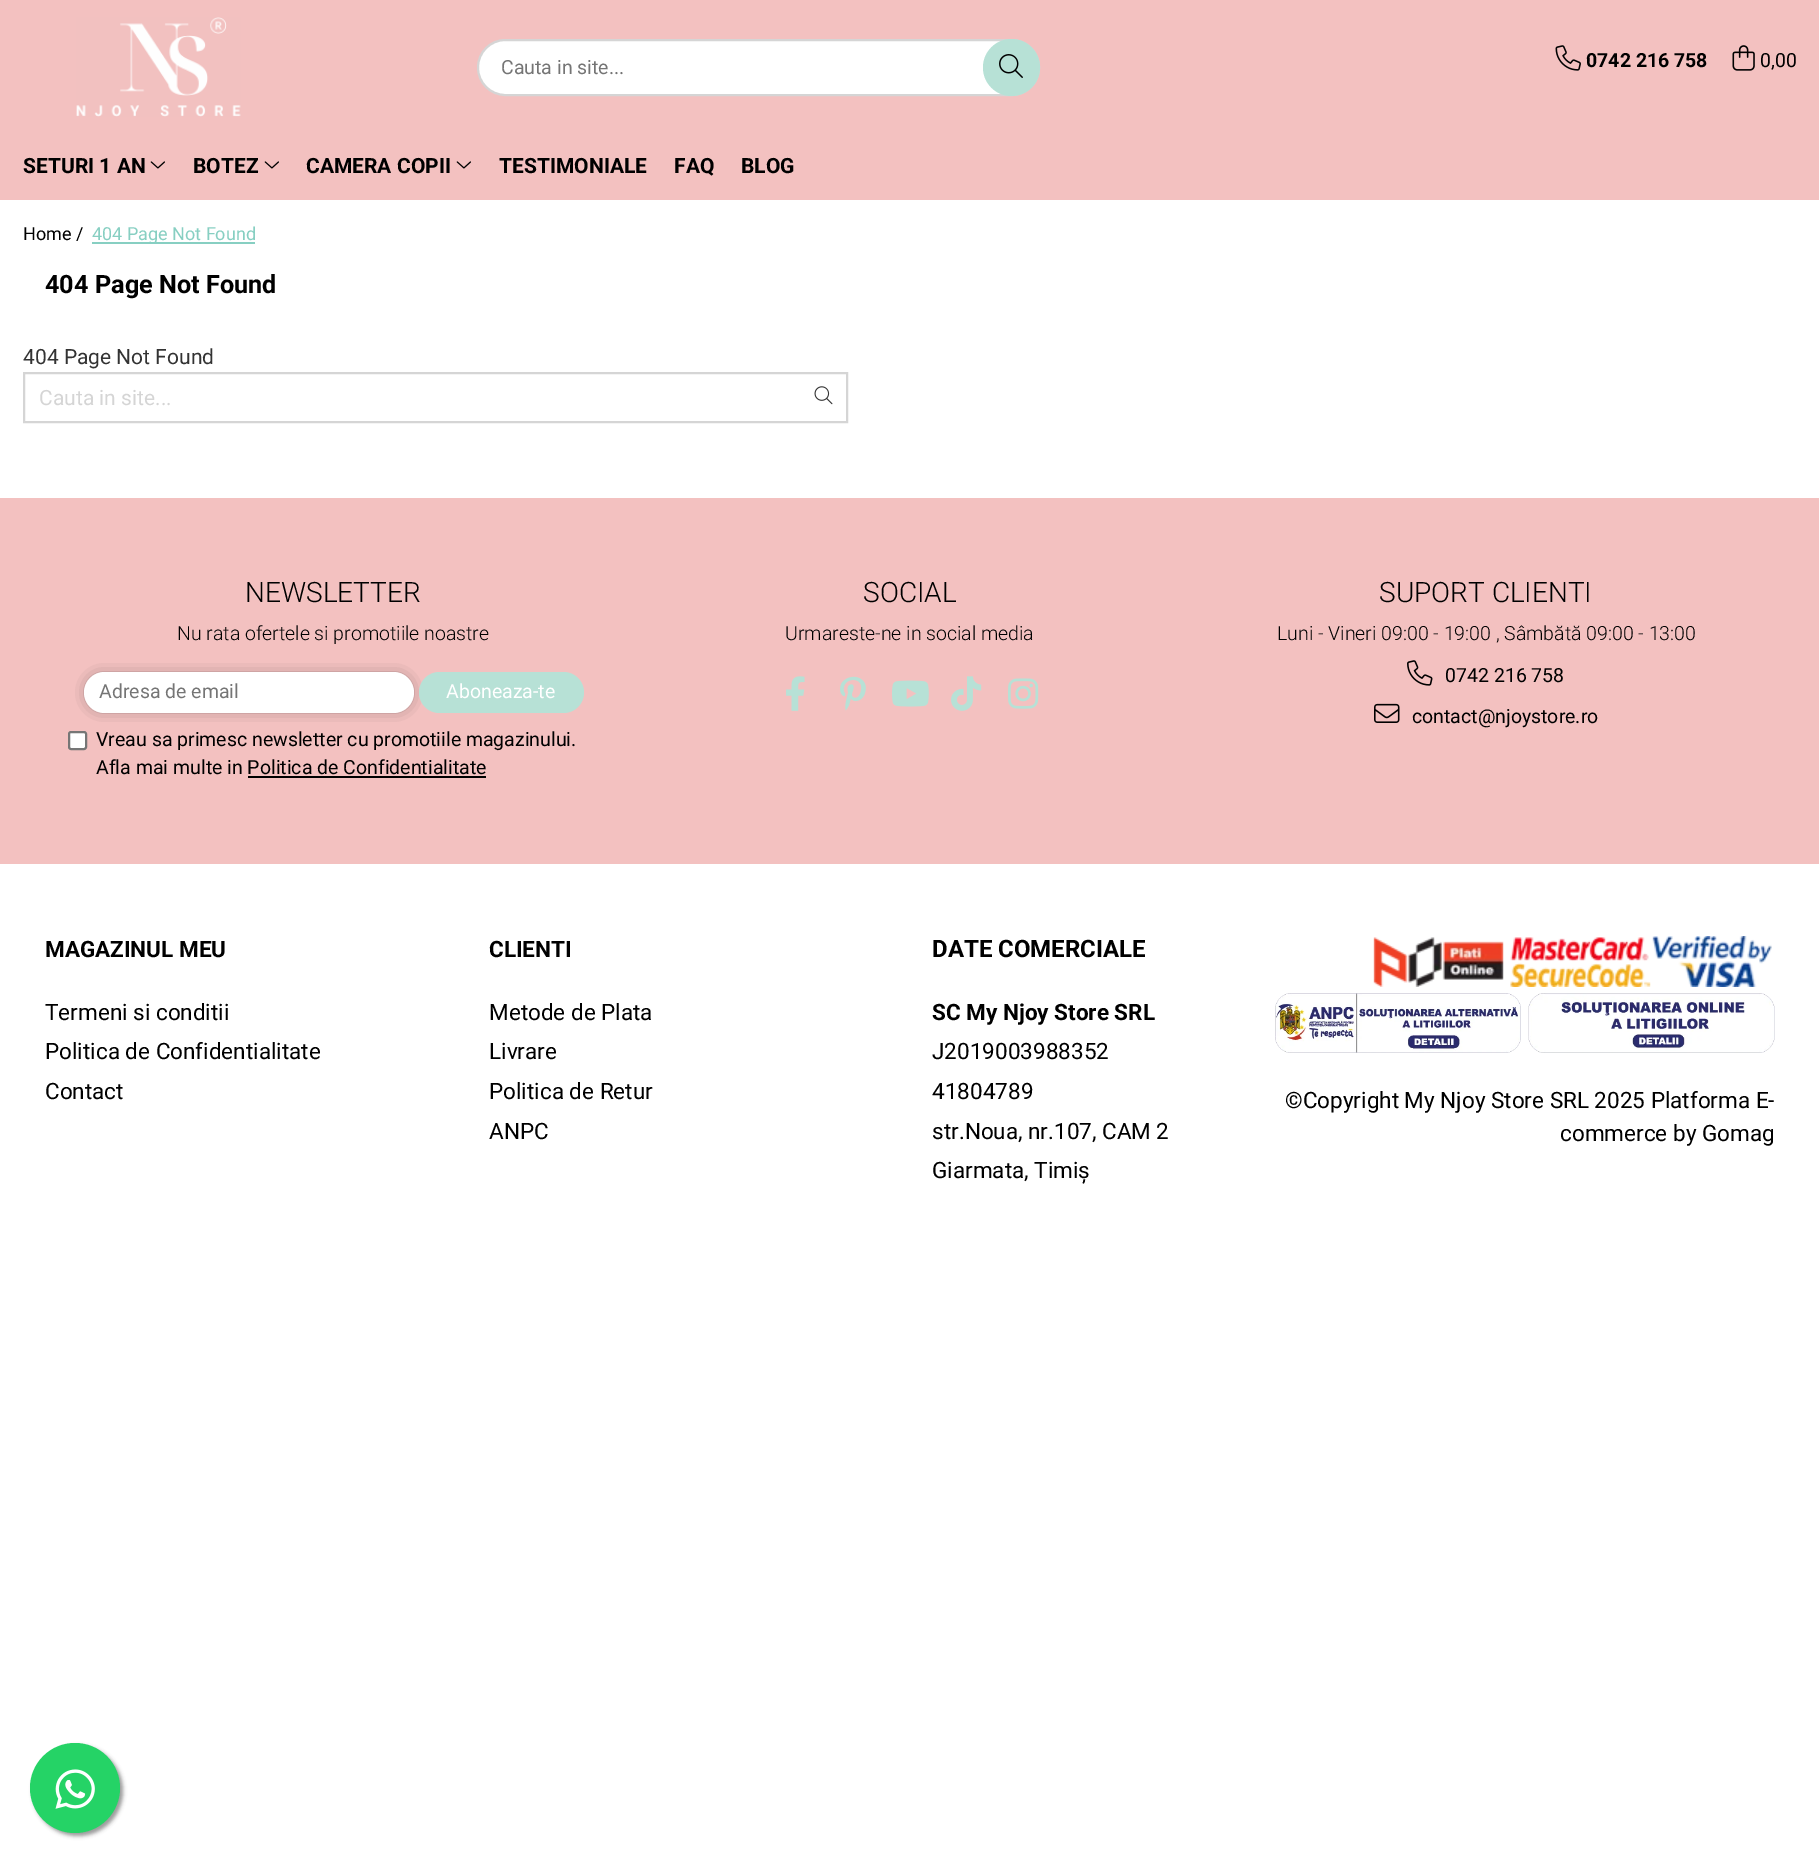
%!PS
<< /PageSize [1819 1862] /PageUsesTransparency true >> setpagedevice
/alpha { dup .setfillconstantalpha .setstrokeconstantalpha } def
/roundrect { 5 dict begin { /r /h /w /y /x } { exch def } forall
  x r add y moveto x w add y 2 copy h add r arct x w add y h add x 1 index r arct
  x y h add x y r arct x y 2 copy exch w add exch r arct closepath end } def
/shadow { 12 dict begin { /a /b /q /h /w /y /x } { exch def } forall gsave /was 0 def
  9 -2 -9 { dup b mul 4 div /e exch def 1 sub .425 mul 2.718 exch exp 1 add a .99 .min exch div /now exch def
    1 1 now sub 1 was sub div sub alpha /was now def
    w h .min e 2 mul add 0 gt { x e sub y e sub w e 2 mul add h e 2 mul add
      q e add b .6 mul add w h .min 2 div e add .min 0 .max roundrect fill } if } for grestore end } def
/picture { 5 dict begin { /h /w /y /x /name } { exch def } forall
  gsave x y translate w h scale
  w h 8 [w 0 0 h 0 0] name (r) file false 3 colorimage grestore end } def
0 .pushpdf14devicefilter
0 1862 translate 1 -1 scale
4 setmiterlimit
1 setgray
0 0 1819 1862 rectfill
0.953 0.757 0.753 setrgbcolor
0 0 1819 200 rectfill
(img1.rgb) 76 17 165 100 picture
1 setgray
478 40 561 55 27.5 roundrect gsave fill grestore
0.835 setgray
2 setlinewidth
stroke
/Roboto-Regular [19.5 0 0 -19.5 0 0] selectfont
0.459 setgray
501 74 moveto (Cauta in site...) show
0.718 0.882 0.839 setrgbcolor
newpath 1011.5 67.5 28.5 0 360 arc closepath fill
(img2.rgb) 999 54 24 24 picture
(img3.rgb) 1555 45 26 26 picture
/Roboto-Bold [19.5 0 0 -19.5 0 0] selectfont
0 setgray
1586 67 moveto (0742 216 758) show
(img4.rgb) 1732 45 23 26 picture
/Roboto-Regular [19.5 0 0 -19.5 0 0] selectfont
1760 67 moveto (0,00) show
/Roboto-Bold [21 0 0 -21 0 0] selectfont
23 173 moveto (SETURI 1 AN) show
(img5.rgb) 150 161 15 8 picture
193 173 moveto (BOTEZ) show
(img5.rgb) 264 161 15 8 picture
306 173 moveto (CAMERA COPII) show
(img5.rgb) 456 161 15 8 picture
499 173 moveto (TESTIMONIALE) show
674 173 moveto (FAQ) show
741 173 moveto (BLOG) show
/Roboto-Regular [18 0 0 -18 0 0] selectfont
23 240 moveto (Home /) show
0.529 0.812 0.761 setrgbcolor
92 242 163 2 rectfill
92 240 moveto (404 Page Not Found) show
/Roboto-Bold [25.25 0 0 -25.25 0 0] selectfont
0 setgray
45 293 moveto (404 Page Not Found) show
/Roboto-Regular [21 0 0 -21 0 0] selectfont
0.2 setgray
23 364 moveto (404 Page Not Found) show
0.835 setgray
24 373 823 49 rectstroke
39 405 moveto (Cauta in site...) show
(img6.rgb) 814 386 19 19 picture
0.953 0.757 0.753 setrgbcolor
0 498 1819 366 rectfill
/Roboto-Light [28 0 0 -28 0 0] selectfont
0 setgray
245 602 moveto (NEWSLETTER) show
/Roboto-Light [19.5 0 0 -19.5 0 0] selectfont
177 640 moveto (Nu rata ofertele si promotiile noastre) show
93 681 312 23 11.5 8 1 shadow
1 setgray
84 672 330 41 20.5 roundrect fill
/Roboto-Regular [19.5 0 0 -19.5 0 0] selectfont
0.459 setgray
99 698 moveto (Adresa de email) show
0.718 0.882 0.839 setrgbcolor
419 672 165 41 20.5 roundrect fill
1 setgray
446 698 moveto (Aboneaza-te) show
69 732 17 17 2 roundrect gsave fill grestore
0.463 setgray
stroke
0 setgray
96 746 moveto (Vreau sa primesc newsletter cu promotiile magazinului.) show
96 774 moveto (Afla mai multe in Politica de Confidentialitate) show
248 776 238 2 rectfill
/Roboto-Light [28 0 0 -28 0 0] selectfont
863 602 moveto (SOCIAL) show
/Roboto-Light [19.5 0 0 -19.5 0 0] selectfont
785 640 moveto (Urmareste-ne in social media) show
(img7.rgb) 786 676 19 35 picture
(img8.rgb) 840 676 26 35 picture
(img9.rgb) 892 680 37 27 picture
(img10.rgb) 951 676 31 35 picture
(img11.rgb) 1008 678 31 31 picture
/Roboto-Light [28 0 0 -28 0 0] selectfont
1379 602 moveto (SUPORT CLIENTI) show
/Roboto-Light [19.5 0 0 -19.5 0 0] selectfont
1277 640 moveto (Luni - Vineri 09:00 - 19:00 , Sâmbătă 09:00 - 13:00) show
(img12.rgb) 1407 660 26 26 picture
/Roboto-Regular [19.5 0 0 -19.5 0 0] selectfont
1445 682 moveto (0742 216 758) show
(img13.rgb) 1374 703 26 20 picture
1412 723 moveto (contact@njoystore.ro) show
/Roboto-Bold [22.5 0 0 -22.5 0 0] selectfont
45 957 moveto (MAGAZINUL MEU) show
/Roboto-Regular [22.5 0 0 -22.5 0 0] selectfont
45 1020 moveto (Termeni si conditii) show
45 1059 moveto (Politica de Confidentialitate) show
45 1099 moveto (Contact) show
/Roboto-Bold [22.5 0 0 -22.5 0 0] selectfont
489 957 moveto (CLIENTI) show
/Roboto-Regular [22.5 0 0 -22.5 0 0] selectfont
489 1020 moveto (Metode de Plata) show
489 1059 moveto (Livrare) show
489 1099 moveto (Politica de Retur) show
489 1139 moveto (ANPC) show
/Roboto-Bold [24 0 0 -24 0 0] selectfont
932 957 moveto (DATE COMERCIALE) show
/Roboto-Bold [22.5 0 0 -22.5 0 0] selectfont
932 1020 moveto (SC My Njoy Store SRL) show
/Roboto-Regular [22.5 0 0 -22.5 0 0] selectfont
932 1059 moveto (J2019003988352) show
932 1099 moveto (41804789) show
932 1139 moveto (str.Noua, nr.107, CAM 2) show
932 1178 moveto (Giarmata, Timiș) show
(img14.rgb) 1373 936 399 51 picture
(img15.rgb) 1275 993 246 60 picture
(img16.rgb) 1528 993 247 60 picture
1285 1108 moveto (©Copyright My Njoy Store SRL 2025 Platforma E-) show
1560 1141 moveto (commerce by Gomag) show
0.6 setgray
33 1746 90 90 45 2 1 shadow
0.145 0.827 0.4 setrgbcolor
newpath 75 1788 45 0 360 arc closepath fill
(img17.rgb) 55 1769 40 40 picture
.poppdf14devicefilter showpage
